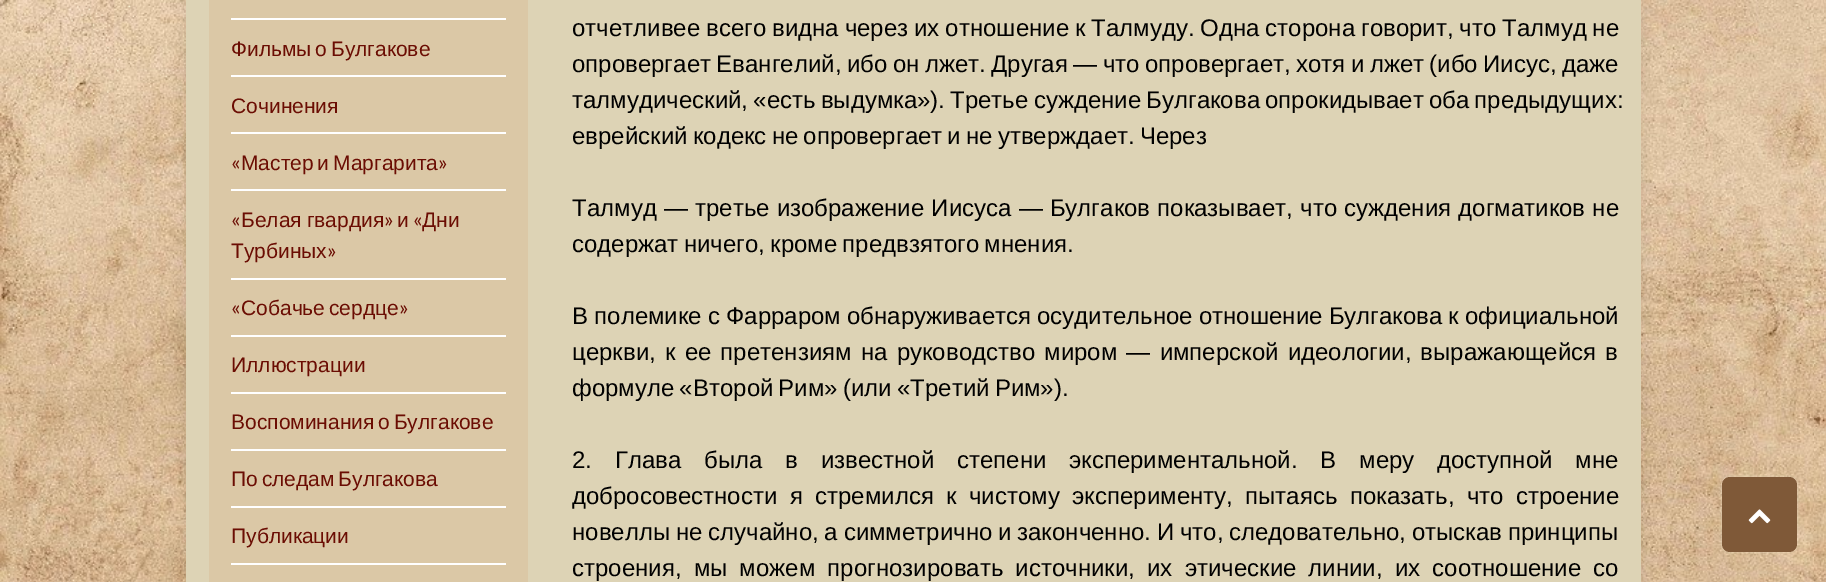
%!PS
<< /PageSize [1826 582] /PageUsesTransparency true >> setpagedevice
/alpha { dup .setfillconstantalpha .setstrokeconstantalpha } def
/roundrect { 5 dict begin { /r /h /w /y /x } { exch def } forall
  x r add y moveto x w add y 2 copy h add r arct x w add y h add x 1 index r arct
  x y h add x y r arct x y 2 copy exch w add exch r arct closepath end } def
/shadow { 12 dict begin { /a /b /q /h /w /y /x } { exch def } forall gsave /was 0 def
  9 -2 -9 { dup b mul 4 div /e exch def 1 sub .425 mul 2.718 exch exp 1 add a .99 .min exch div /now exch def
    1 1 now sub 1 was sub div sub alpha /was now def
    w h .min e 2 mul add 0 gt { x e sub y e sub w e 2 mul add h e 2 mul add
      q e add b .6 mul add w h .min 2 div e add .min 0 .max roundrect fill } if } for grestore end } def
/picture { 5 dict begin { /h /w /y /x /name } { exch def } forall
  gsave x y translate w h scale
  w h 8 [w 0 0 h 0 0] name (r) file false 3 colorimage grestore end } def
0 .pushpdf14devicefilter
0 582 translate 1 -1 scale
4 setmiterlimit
1 setgray
0 0 1826 582 rectfill
(img1.rgb) 0 0 1826 582 picture
0 setgray
186 -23 1455 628 0 7.5 0.1 shadow
0.867 0.827 0.71 setrgbcolor
186 0 1455 582 rectfill
0.859 0.784 0.651 setrgbcolor
209 0 319 582 rectfill
1 setgray
231 18 275 2 rectfill
231 75 275 2 rectfill
/LiberationSans-Regular [21 0 0 -21 0 0] selectfont
0.42 0.051 0.012 setrgbcolor
231 56 moveto -2 0 32 (Фильмы о Булгакове) widthshow
1 setgray
231 132 275 2 rectfill
0.42 0.051 0.012 setrgbcolor
231 113 moveto (Сочинения) show
1 setgray
231 189 275 2 rectfill
/Lato-Regular [21 0 0 -21 0 0] selectfont
0.42 0.051 0.012 setrgbcolor
231 170 moveto («) show
/LiberationSans-Regular [21 0 0 -21 0 0] selectfont
241 170 moveto -2 0 32 (Мастер и Маргарита) widthshow
/Lato-Regular [21 0 0 -21 0 0] selectfont
438 170 moveto (») show
1 setgray
231 278 275 2 rectfill
0.42 0.051 0.012 setrgbcolor
231 227 moveto («) show
/LiberationSans-Regular [21 0 0 -21 0 0] selectfont
241 227 moveto -1 0 32 (Белая гвардия) widthshow
/Lato-Regular [21 0 0 -21 0 0] selectfont
384 227 moveto (») show
/LiberationSans-Regular [21 0 0 -21 0 0] selectfont
397 227 moveto (и) show
/Lato-Regular [21 0 0 -21 0 0] selectfont
413 227 moveto («) show
/LiberationSans-Regular [21 0 0 -21 0 0] selectfont
422 227 moveto (Дни) show
231 258 moveto (Турбиных) show
/Lato-Regular [21 0 0 -21 0 0] selectfont
327 258 moveto (») show
1 setgray
231 335 275 2 rectfill
0.42 0.051 0.012 setrgbcolor
231 315 moveto («) show
/LiberationSans-Regular [21 0 0 -21 0 0] selectfont
241 315 moveto -2 0 32 (Собачье сердце) widthshow
/Lato-Regular [21 0 0 -21 0 0] selectfont
399 315 moveto (») show
1 setgray
231 392 275 2 rectfill
/LiberationSans-Regular [21 0 0 -21 0 0] selectfont
0.42 0.051 0.012 setrgbcolor
231 372 moveto (Иллюстрации) show
1 setgray
231 449 275 2 rectfill
0.42 0.051 0.012 setrgbcolor
231 429 moveto -2 0 32 (Воспоминания о Булгакове) widthshow
1 setgray
231 506 275 2 rectfill
0.42 0.051 0.012 setrgbcolor
231 486 moveto -2 0 32 (По следам Булгакова) widthshow
1 setgray
231 563 275 2 rectfill
0.42 0.051 0.012 setrgbcolor
231 543 moveto (Публикации) show
/LiberationSans-Regular [24 0 0 -24 0 0] selectfont
0 setgray
572 36 moveto -0.8 0 32 (отчетливее всего видна через их отношение к Талмуду. Одна сторона говорит, что Талмуд не) widthshow
572 72 moveto -1.25 0 32 (опровергает Евангелий, ибо он лжет. Другая — что опровергает, хотя и лжет \(ибо Иисус, даже) widthshow
572 108 moveto -1.5 0 32 (талмудический, «есть выдумка»\). Третье суждение Булгакова опрокидывает оба предыдущих:) widthshow
572 144 moveto -1.5 0 32 (еврейский кодекс не опровергает и не утверждает. Через) widthshow
572 216 moveto 0.5 0 32 (Талмуд — третье изображение Иисуса — Булгаков показывает, что суждения догматиков не) widthshow
572 252 moveto -1.5 0 32 (содержат ничего, кроме предвзятого мнения.) widthshow
572 324 moveto -0.5 0 32 (В полемике с Фарраром обнаруживается осудительное отношение Булгакова к официальной) widthshow
572 360 moveto 2.5 0 32 (церкви, к ее претензиям на руководство миром — имперской идеологии, выражающейся в) widthshow
572 396 moveto -1.5 0 32 (формуле «Второй Рим» \(или «Третий Рим»\).) widthshow
572 468 moveto 16.1 0 32 (2. Глава была в известной степени экспериментальной. В меру доступной мне) widthshow
572 504 moveto 5.75 0 32 (добросовестности я стремился к чистому эксперименту, пытаясь показать, что строение) widthshow
572 540 moveto -0.9 0 32 (новеллы не случайно, а симметрично и законченно. И что, следовательно, отыскав принципы) widthshow
572 576 moveto 5.5 0 32 (строения, мы можем прогнозировать источники, их этические линии, их соотношение со) widthshow
1 setgray
1722 477 75 75 8 1.5 0.3 shadow
0.498 0.349 0.22 setrgbcolor
1722 477 75 75 8 roundrect fill
(img2.rgb) 1748 509 23 15 picture
.poppdf14devicefilter showpage
